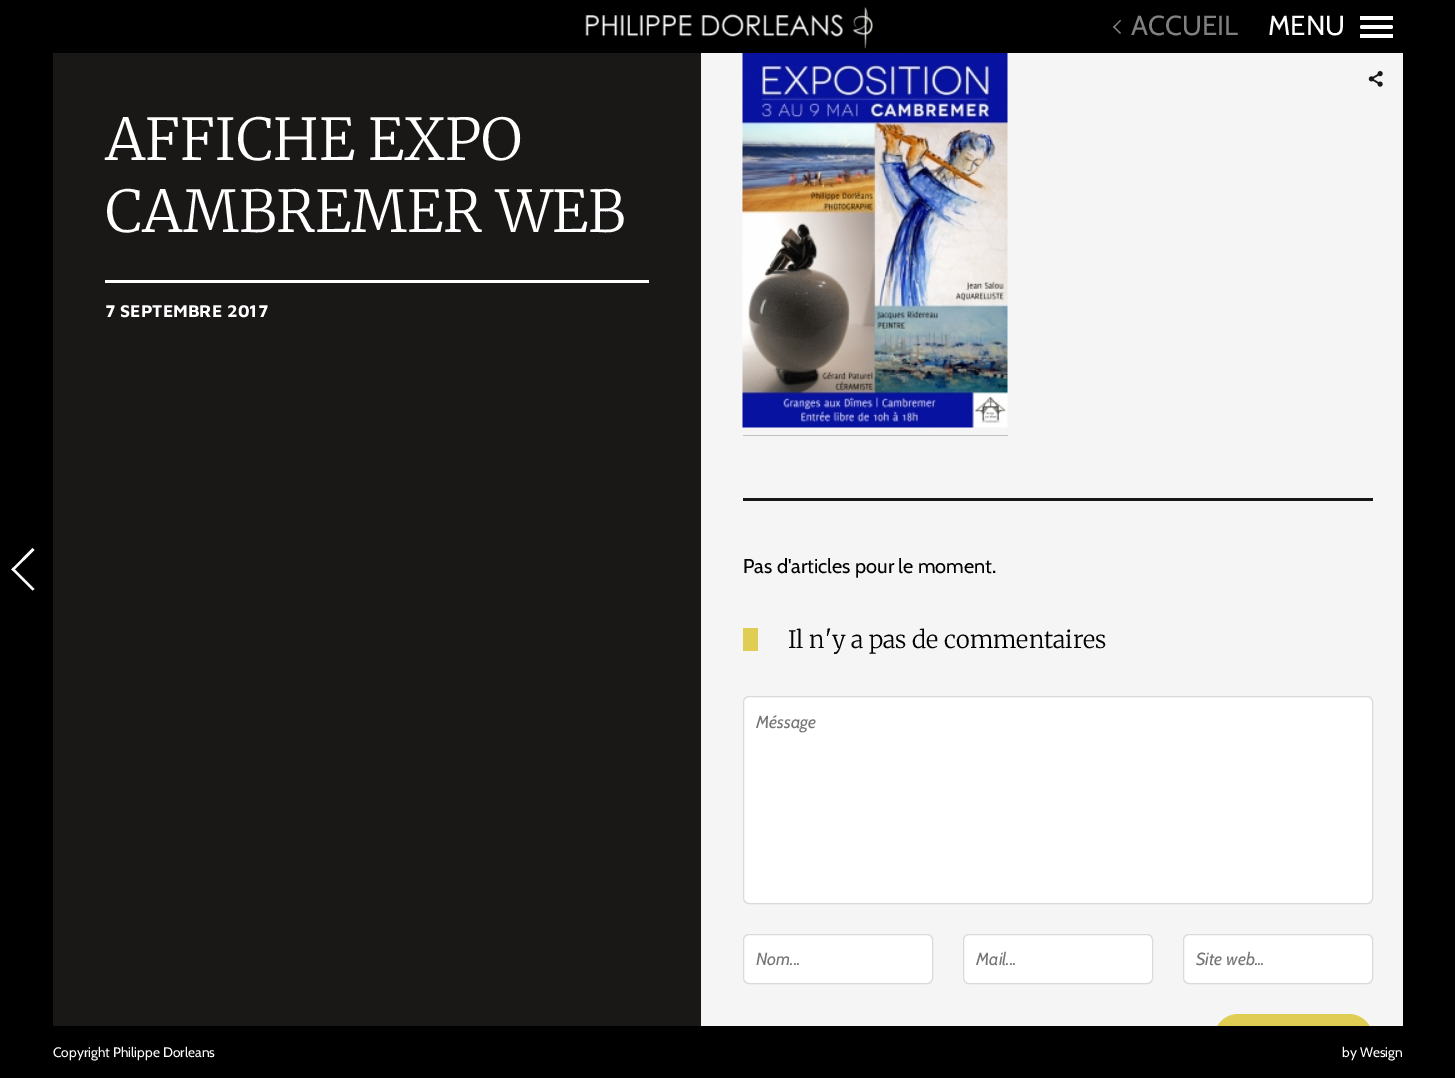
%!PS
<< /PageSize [1455 1078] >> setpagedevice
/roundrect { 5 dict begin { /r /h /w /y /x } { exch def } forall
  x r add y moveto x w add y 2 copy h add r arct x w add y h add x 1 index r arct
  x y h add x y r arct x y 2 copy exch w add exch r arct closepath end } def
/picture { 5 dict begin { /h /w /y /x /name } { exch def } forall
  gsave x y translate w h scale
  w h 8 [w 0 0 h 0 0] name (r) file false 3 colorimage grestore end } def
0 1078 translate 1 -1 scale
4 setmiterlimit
0.961 setgray
0 0 1455 1078 rectfill
0 setgray
0 0 1455 53 rectfill
(img1.rgb) 585 7 288 42 picture
0.502 setgray
newpath 1121 33 moveto 1120 34 lineto 1113 27 lineto 1114 26 lineto closepath fill
newpath 1121 20.5 moveto 1114 28 lineto 1113 27 lineto 1120 20 lineto closepath fill
/Cabin-Regular [27.5 0 0 -27.5 0 0] selectfont
1131 35 moveto (ACCUEIL) show
1 setgray
1268 35 moveto (MENU) show
1360 25 33 4 2 roundrect fill
1360 16 33 4 rectfill
1360 34 33 4 rectfill
0 setgray
0 53 53 973 rectfill
0.102 0.09 0.09 setrgbcolor
53 53 648 973 rectfill
1 setgray
105 280 544 3 rectfill
/Merriweather-Light [57.5 0 0 -57.5 0 0] selectfont
105 160 moveto (AFFICHE EXPO) show
105 232 moveto (CAMBREMER WEB) show
/MavenPro-Bold [17.5 0 0 -17.5 0 0] selectfont
105 317 moveto (7 SEPTEMBRE 2017) show
(img2.rgb) 742 53 266 375 picture
0.749 setgray
743 435 265 1 rectfill
(img3.rgb) 1368 71 15 16 picture
0.102 0.09 0.09 setrgbcolor
743 498 630 3 rectfill
1 setgray
newpath 13 567.5 moveto 34.5 589 lineto 32.5 590.5 lineto 11.5 569.5 lineto closepath fill
newpath 32.5 548 moveto 34.5 550 lineto 13 571 lineto 11.5 569.5 lineto closepath fill
/Cabin-Regular [20 0 0 -20 0 0] selectfont
0 setgray
743 573 moveto (Pas d'articles pour le moment.) show
0.878 0.804 0.325 setrgbcolor
743 628 15 23 rectfill
/Merriweather-Light [23.75 0 0 -23.75 0 0] selectfont
0 setgray
788 648 moveto (Il n'y a pas de commentaires) show
1 setgray
743.5 696.5 629 207 5.5 roundrect gsave fill grestore
0.855 setgray
stroke
/Cabin-Italic [17.5 0 0 -17.5 0 0] selectfont
0.459 setgray
756 728 moveto (Méssage) show
1 setgray
743.5 934.5 189 49 5.5 roundrect gsave fill grestore
0.855 setgray
stroke
0.459 setgray
756 965 moveto (Nom...) show
1 setgray
963.5 934.5 189 49 5.5 roundrect gsave fill grestore
0.855 setgray
stroke
0.459 setgray
976 965 moveto (Mail...) show
1 setgray
1183.5 934.5 189 49 5.5 roundrect gsave fill grestore
0.855 setgray
stroke
0.459 setgray
1196 965 moveto (Site web...) show
0.878 0.804 0.325 setrgbcolor
1214 1014 159 49 24.5 roundrect fill
0 setgray
1403 53 52 973 rectfill
0 1026 1455 52 rectfill
/Cabin-Regular [13.75 0 0 -13.75 0 0] selectfont
1 setgray
53 1057 moveto (Copyright Philippe Dorleans) show
1342 1057 moveto (by Wesign) show
showpage
